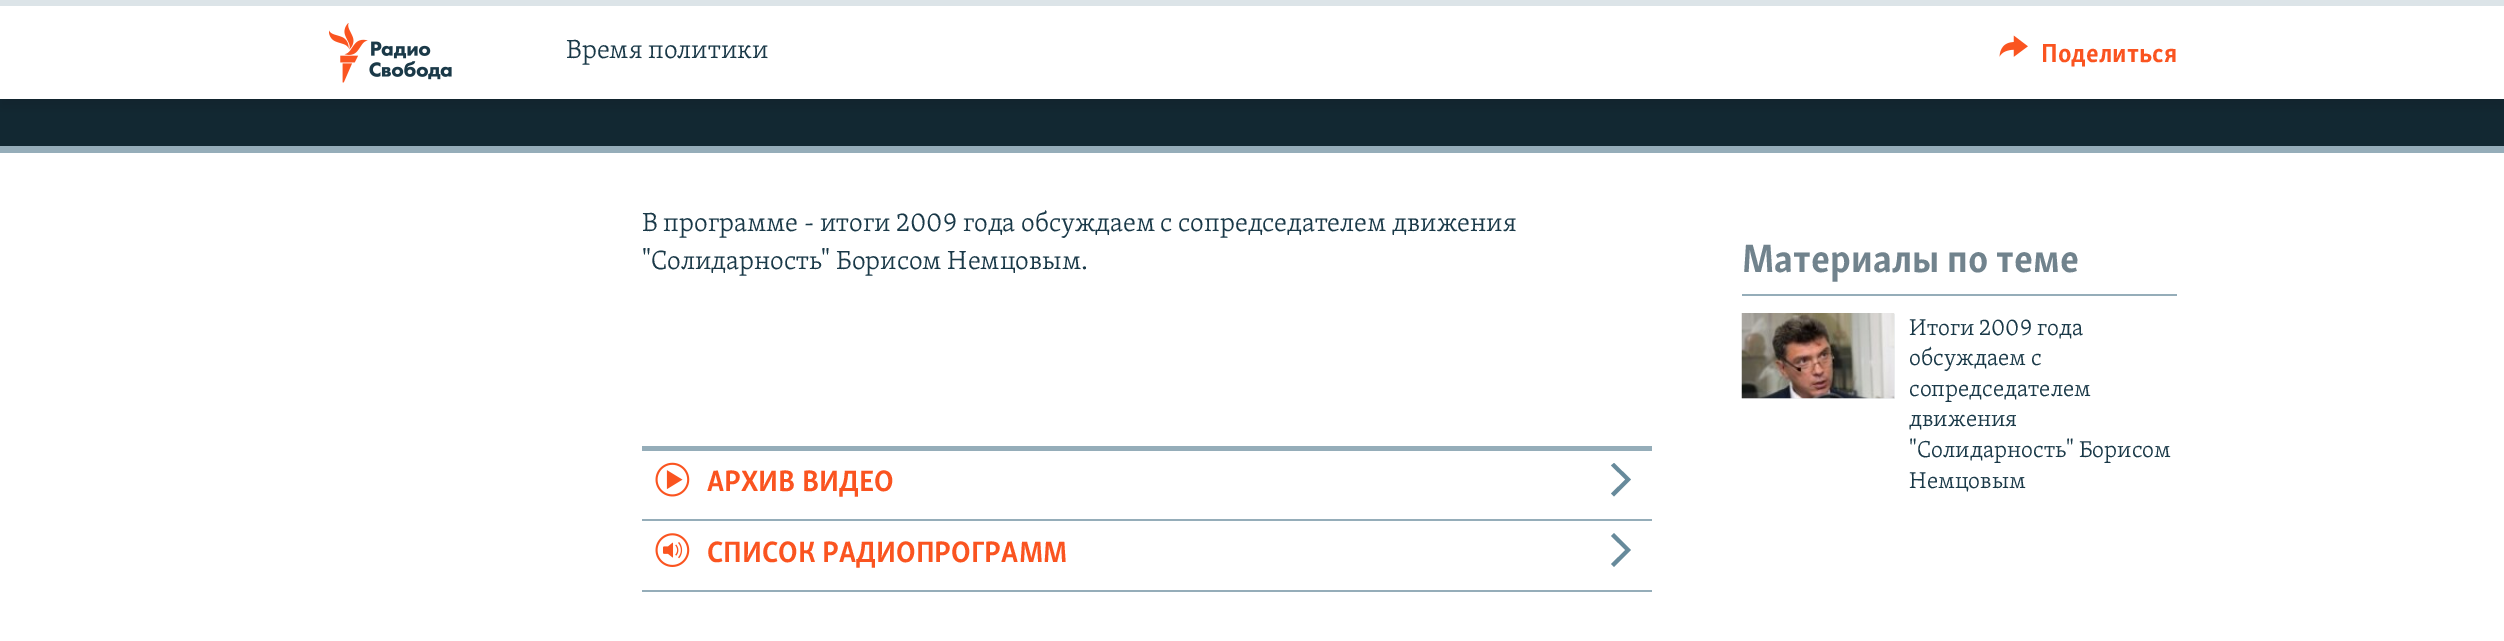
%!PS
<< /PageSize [2504 641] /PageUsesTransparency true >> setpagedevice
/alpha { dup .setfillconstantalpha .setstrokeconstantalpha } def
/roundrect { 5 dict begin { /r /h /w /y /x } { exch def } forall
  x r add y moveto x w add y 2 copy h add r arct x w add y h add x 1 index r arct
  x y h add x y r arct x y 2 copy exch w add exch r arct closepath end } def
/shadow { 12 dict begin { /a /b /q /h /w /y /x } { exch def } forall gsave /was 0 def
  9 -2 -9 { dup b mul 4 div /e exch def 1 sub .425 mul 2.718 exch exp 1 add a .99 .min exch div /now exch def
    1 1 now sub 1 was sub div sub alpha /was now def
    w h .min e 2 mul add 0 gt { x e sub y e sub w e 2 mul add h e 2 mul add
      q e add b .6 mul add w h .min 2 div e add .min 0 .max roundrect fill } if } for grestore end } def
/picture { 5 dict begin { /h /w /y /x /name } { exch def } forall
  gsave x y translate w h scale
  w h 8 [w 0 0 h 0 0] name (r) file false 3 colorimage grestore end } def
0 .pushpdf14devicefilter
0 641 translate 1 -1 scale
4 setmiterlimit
1 setgray
0 0 2504 641 rectfill
0.071 0.157 0.196 setrgbcolor
0 99 2504 47 rectfill
0 setgray
0 8 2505 99 0 7.5 0.1 shadow
1 setgray
0 6 2504 93 rectfill
0.863 0.894 0.91 setrgbcolor
0 0 2504 6 rectfill
(img1.rgb) 329 23 123 60 picture
/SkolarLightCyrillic-Light [27 0 0 -27 0 0] selectfont
0.102 0.224 0.282 setrgbcolor
566 58 moveto (Время политики) show
(img2.rgb) 1999 35 29 22 picture
/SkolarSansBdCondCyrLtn-Bold [27 0 0 -27 0 0] selectfont
0.98 0.329 0.125 setrgbcolor
2041 62 moveto (Поделиться) show
0.584 0.678 0.725 setrgbcolor
0 146 2504 7 rectfill
/SkolarLightCyrillic-Light [27 0 0 -27 0 0] selectfont
0.102 0.224 0.282 setrgbcolor
642 231 moveto (В программе - итоги 2009 года обсуждаем с сопредседателем движения) show
642 269 moveto ("Солидарность" Борисом Немцовым.) show
0.584 0.678 0.725 setrgbcolor
1742 294 435 2 rectfill
/SkolarSansBdCondCyrLtn-Bold [40.5 0 0 -40.5 0 0] selectfont
0.443 0.514 0.553 setrgbcolor
1742 272 moveto (Материалы по теме) show
0.929 0.937 0.941 setrgbcolor
1742 314 153 85 rectfill
(img3.rgb) 1741 313 154 86 picture
/SkolarLightCyrillic-Light [23.6 0 0 -23.6 0 0] selectfont
0.102 0.224 0.282 setrgbcolor
1909 335 moveto (Итоги 2009 года) show
1909 365 moveto (обсуждаем с) show
1909 396 moveto (сопредседателем) show
1909 426 moveto (движения) show
1909 457 moveto ("Солидарность" Борисом) show
1909 488 moveto (Немцовым) show
0.584 0.678 0.725 setrgbcolor
642 446 1010 5 rectfill
642 519 1010 2 rectfill
(img4.rgb) 655 462 35 35 picture
/SkolarSansBdCondCyrLtn-Bold [30.4 0 0 -30.4 0 0] selectfont
0.98 0.329 0.125 setrgbcolor
707 491 moveto (АРХИВ ВИДЕО) show
0.404 0.541 0.608 setrgbcolor
newpath 1614 496.5 moveto 1631 479.5 lineto 1614 463 lineto 1611 465.5 lineto 1625.5 479.5 lineto 1611 493.5 lineto closepath fill
0.584 0.678 0.725 setrgbcolor
642 590 1010 2 rectfill
(img5.rgb) 655 533 35 34 picture
0.98 0.329 0.125 setrgbcolor
707 562 moveto (СПИСОК РАДИОПРОГРАММ) show
0.404 0.541 0.608 setrgbcolor
newpath 1614 567 moveto 1631 550 lineto 1614 533 lineto 1611 536 lineto 1625.5 550 lineto 1611 564 lineto closepath fill
.poppdf14devicefilter showpage
